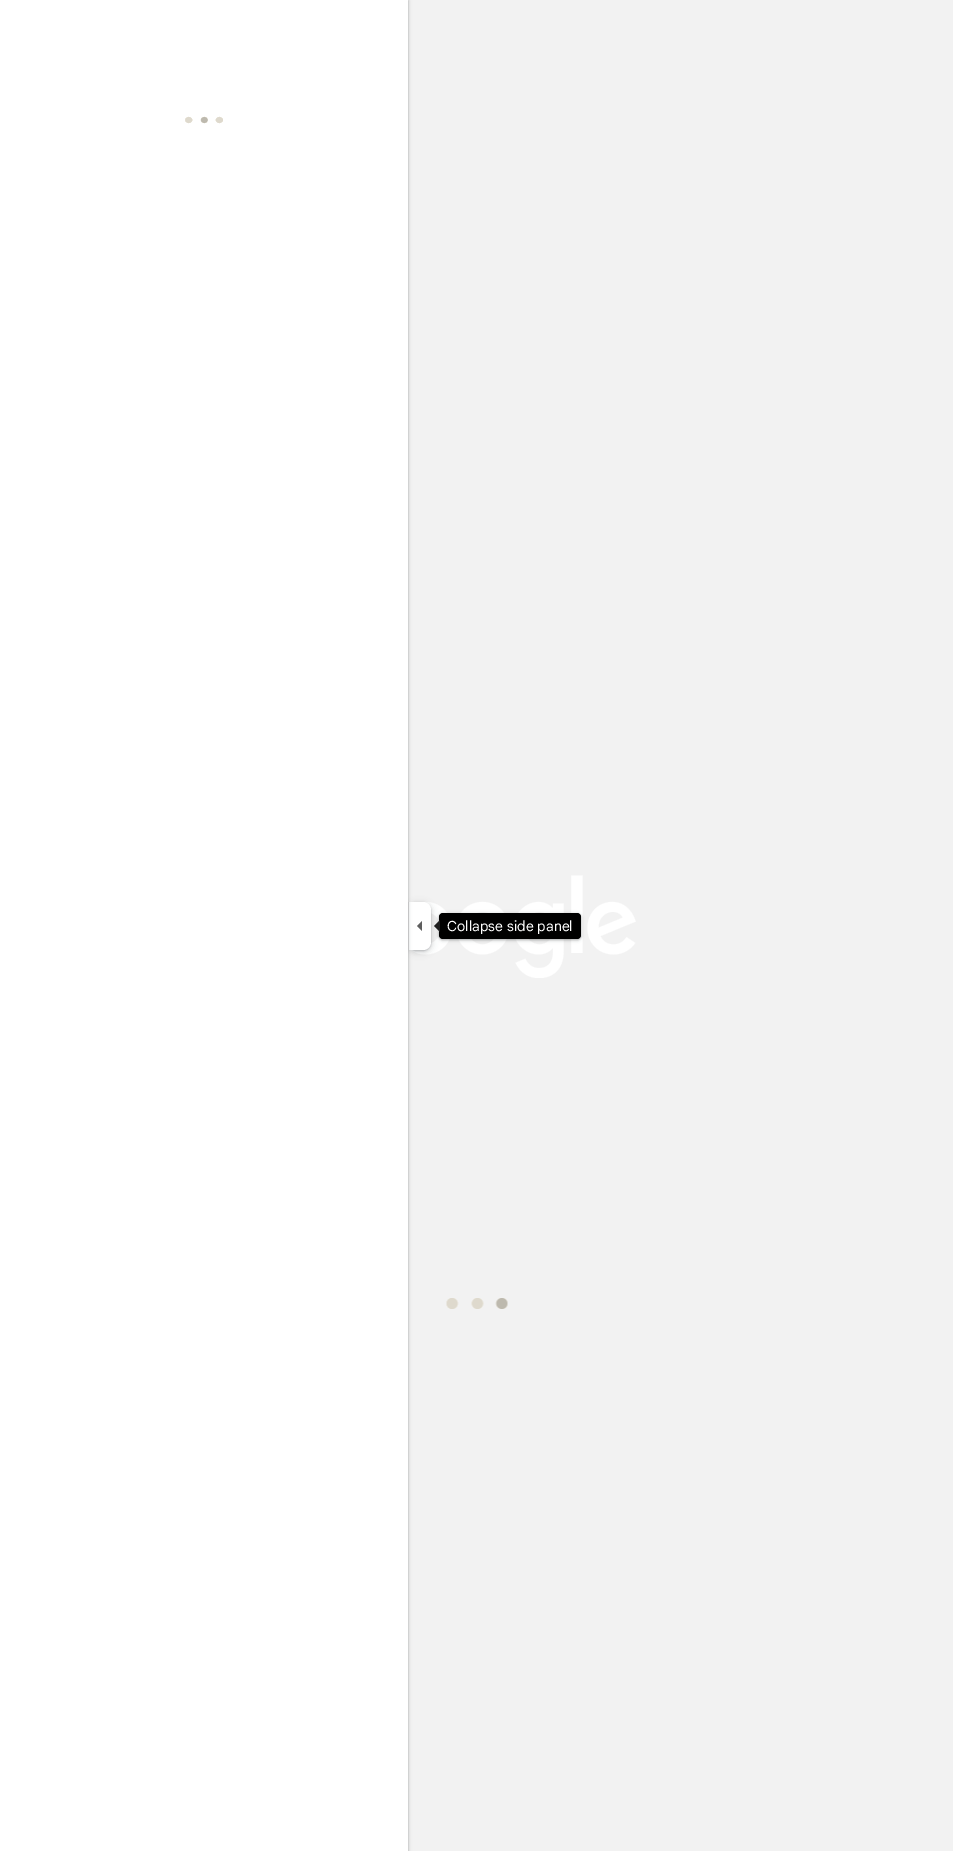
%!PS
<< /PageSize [953 1851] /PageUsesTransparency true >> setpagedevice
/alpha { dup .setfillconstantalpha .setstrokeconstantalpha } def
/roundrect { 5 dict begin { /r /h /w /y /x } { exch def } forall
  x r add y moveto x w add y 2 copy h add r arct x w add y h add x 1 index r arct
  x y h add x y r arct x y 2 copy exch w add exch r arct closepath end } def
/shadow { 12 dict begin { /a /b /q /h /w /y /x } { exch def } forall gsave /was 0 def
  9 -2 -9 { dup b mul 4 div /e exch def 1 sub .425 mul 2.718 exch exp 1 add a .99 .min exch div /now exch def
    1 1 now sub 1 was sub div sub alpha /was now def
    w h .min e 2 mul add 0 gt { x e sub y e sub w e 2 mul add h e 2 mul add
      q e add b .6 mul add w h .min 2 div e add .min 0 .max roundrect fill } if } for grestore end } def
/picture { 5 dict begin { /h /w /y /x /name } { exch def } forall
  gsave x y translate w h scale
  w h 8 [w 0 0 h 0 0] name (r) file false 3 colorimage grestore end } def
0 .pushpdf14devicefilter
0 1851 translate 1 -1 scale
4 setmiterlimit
0.949 setgray
0 0 953 1851 rectfill
(img1.rgb) 410 875 226 103 picture
(img2.rgb) 446 1298 62 11 picture
0.235 0.251 0.263 setrgbcolor
406 902 27 52 10 3 0.15 shadow
408 903 23 48 8 1 0.3 shadow
1 setgray
newpath 408 902 moveto 423 902 lineto 427.5 902 431 905.5 431 910 curveto 431 942 lineto 431 946.5 427.5 950 423 950 curveto 408 950 lineto closepath fill
0.89 setgray
408 902 1 48 rectfill
0.235 0.251 0.263 setrgbcolor
-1 0 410 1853 0 1.5 0.15 shadow
0 1 408 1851 0 1 0.3 shadow
1 setgray
0 0 408 1851 rectfill
(img3.rgb) 185 116 38 8 picture
0.369 setgray
newpath 422 931 moveto 417 926 lineto 422 921 lineto closepath fill
0.235 0.251 0.263 setrgbcolor
438 913 144 28 5 1.5 0.15 shadow
439 914 142 26 4 1 0.3 shadow
0 setgray
439 913 142 26 4 roundrect fill
0.122 setgray
newpath 440 920 moveto 440 932 lineto 434 926 lineto closepath fill
/GoogleSans-Regular [14 0 0 -14 0 0] selectfont
1 setgray
447 931 moveto 0.1 0 (Collapse side panel) ashow
.poppdf14devicefilter showpage
